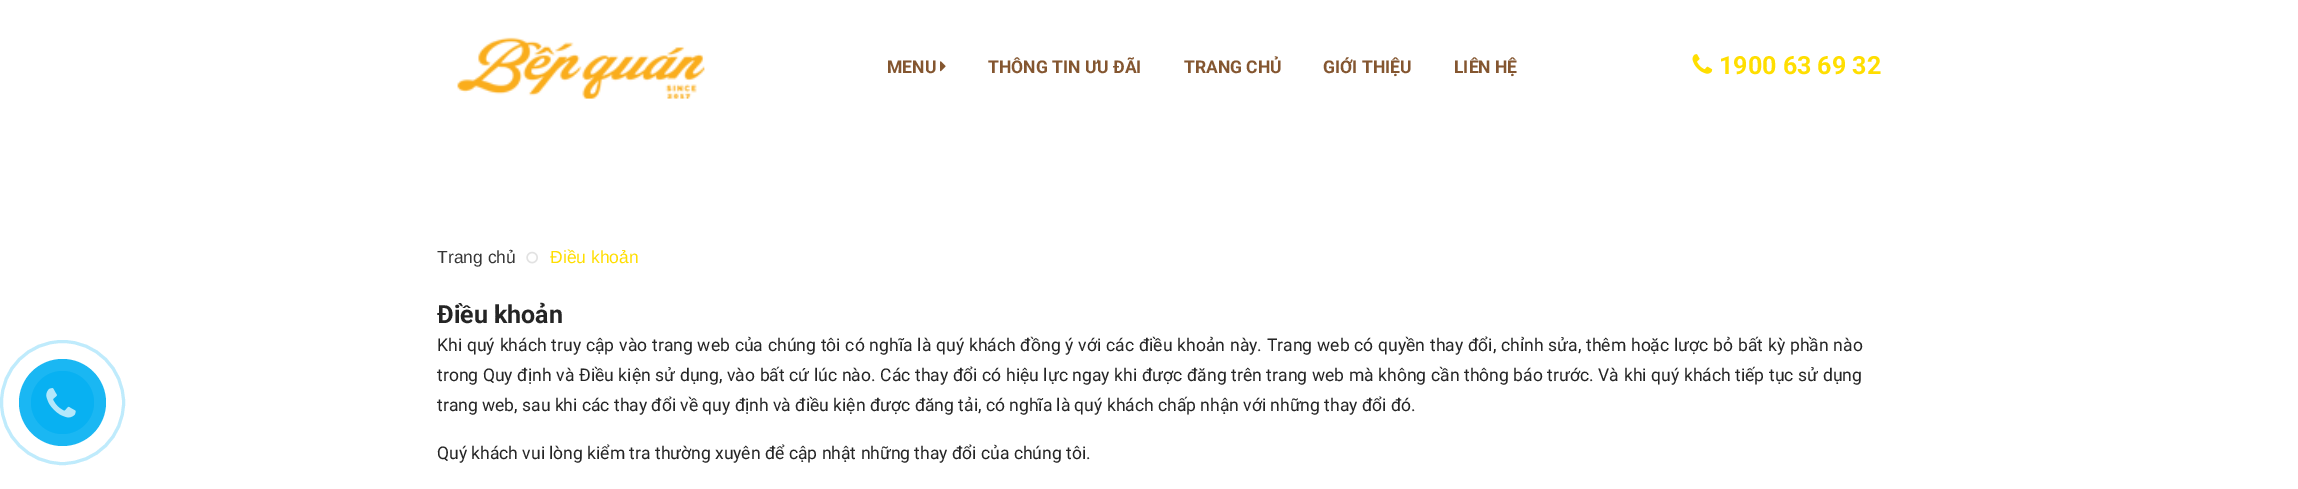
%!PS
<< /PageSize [2298 489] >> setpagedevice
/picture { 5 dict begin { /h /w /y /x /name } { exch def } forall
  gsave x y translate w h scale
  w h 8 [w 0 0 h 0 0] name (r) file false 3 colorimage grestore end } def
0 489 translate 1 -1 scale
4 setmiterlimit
1 setgray
0 0 2298 489 rectfill
(img1.rgb) 457 37 248 62 picture
/Roboto-Bold [17.5 0 0 -17.5 0 0] selectfont
0.518 0.337 0.188 setrgbcolor
887 73 moveto (MENU) show
(img2.rgb) 940 61 6 11 picture
988 73 moveto (THÔNG TIN ƯU ĐÃI) show
1184 73 moveto (TRANG CHỦ) show
1323 73 moveto (GIỚI THIỆU) show
1454 73 moveto (LIÊN HỆ) show
(img3.rgb) 1692 54 21 20 picture
/Roboto-Bold [25 0 0 -25 0 0] selectfont
1 0.871 0 setrgbcolor
1719 74 moveto (1900 63 69 32) show
/LiberationSans-Regular [17.5 0 0 -17.5 0 0] selectfont
0.212 setgray
437 263 moveto (Trang chủ) show
(img4.rgb) 526 251 12 13 picture
1 0.871 0 setrgbcolor
550 263 moveto (Điều khoản) show
0.749 0.922 0.988 setrgbcolor
3 setlinewidth
newpath 62.5 402.5 61 0 360 arc closepath stroke
0.102 0.718 0.953 setrgbcolor
newpath 62.5 402.5 43.5 0 360 arc closepath fill
0.031 0.694 0.949 setrgbcolor
newpath 62.5 402.5 31.5 0 360 arc closepath fill
(img5.rgb) 46 388 30 30 picture
/Roboto-Bold [25 0 0 -25 0 0] selectfont
0.145 setgray
437 323 moveto (Điều khoản) show
/Roboto-Regular [17.5 0 0 -17.5 0 0] selectfont
437 351 moveto 0.55 0 32 (Khi quý khách truy cập vào trang web của chúng tôi có nghĩa là quý khách đồng ý với các điều khoản này. Trang web có quyền thay đổi, chỉnh sửa, thêm hoặc lược bỏ bất kỳ phần nào) widthshow
437 381 moveto 0.35 0 32 (trong Quy định và Điều kiện sử dụng, vào bất cứ lúc nào. Các thay đổi có hiệu lực ngay khi được đăng trên trang web mà không cần thông báo trước. Và khi quý khách tiếp tục sử dụng) widthshow
437 411 moveto (trang web, sau khi các thay đổi về quy định và điều kiện được đăng tải, có nghĩa là quý khách chấp nhận với những thay đổi đó.) show
437 459 moveto (Quý khách vui lòng kiểm tra thường xuyên để cập nhật những thay đổi của chúng tôi.) show
showpage
